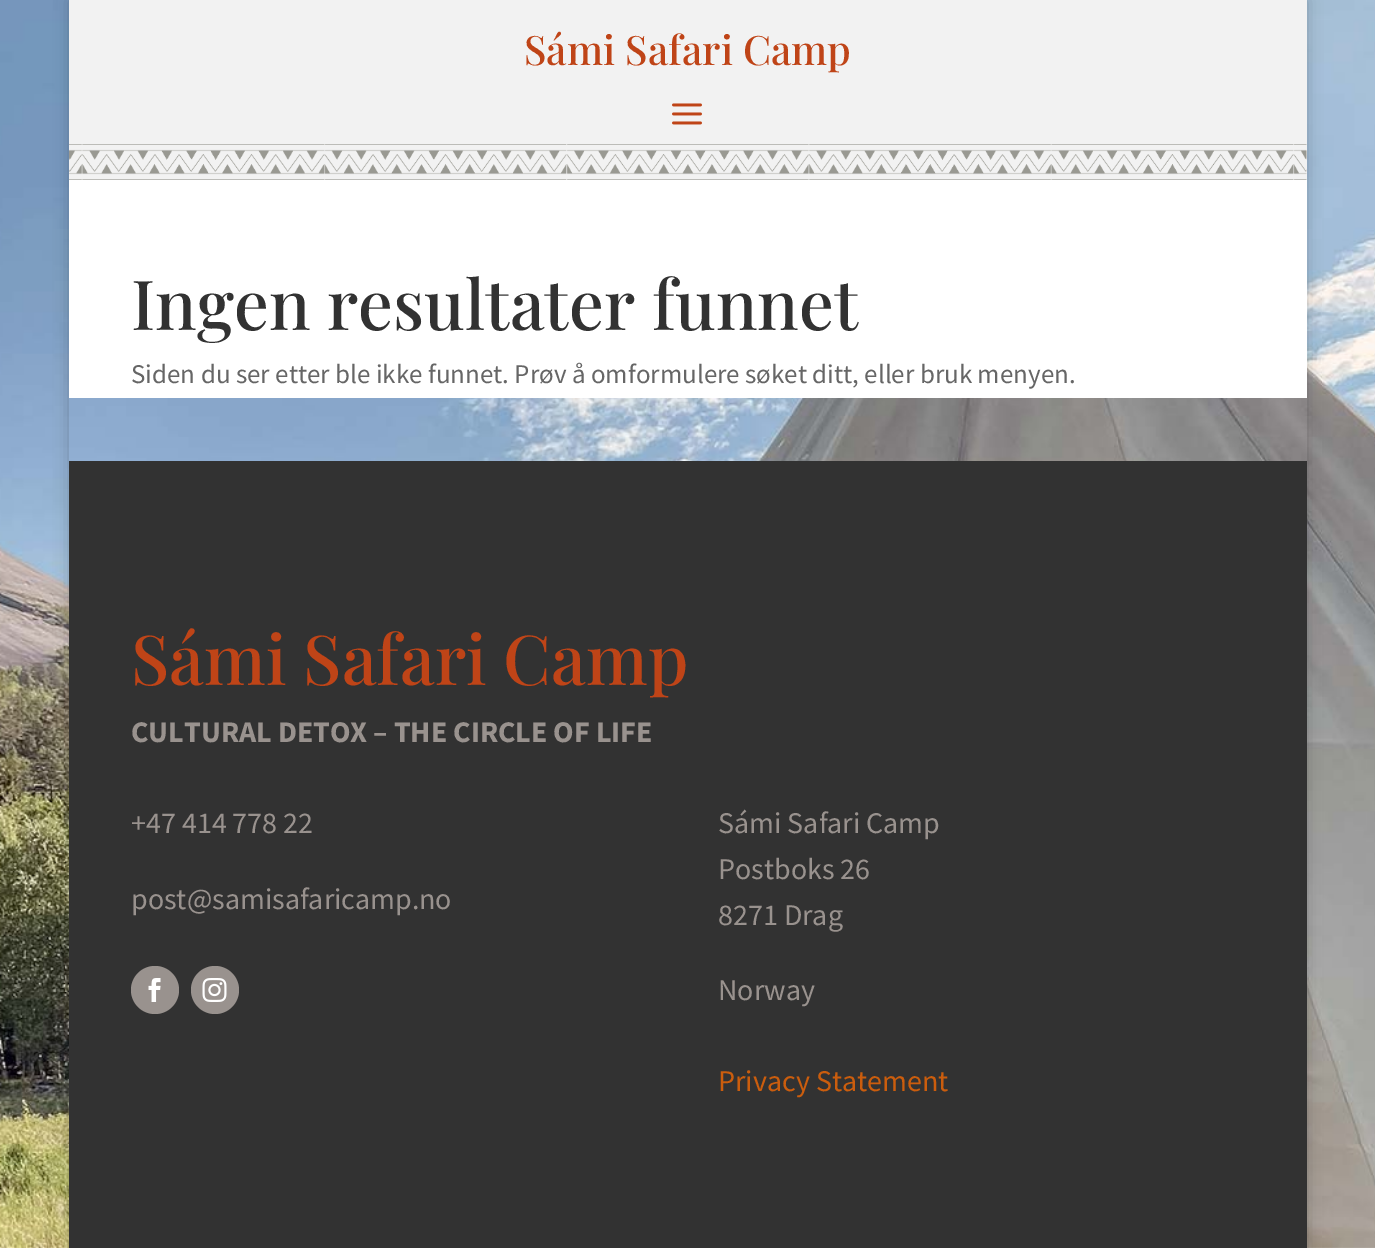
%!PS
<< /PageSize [1375 1248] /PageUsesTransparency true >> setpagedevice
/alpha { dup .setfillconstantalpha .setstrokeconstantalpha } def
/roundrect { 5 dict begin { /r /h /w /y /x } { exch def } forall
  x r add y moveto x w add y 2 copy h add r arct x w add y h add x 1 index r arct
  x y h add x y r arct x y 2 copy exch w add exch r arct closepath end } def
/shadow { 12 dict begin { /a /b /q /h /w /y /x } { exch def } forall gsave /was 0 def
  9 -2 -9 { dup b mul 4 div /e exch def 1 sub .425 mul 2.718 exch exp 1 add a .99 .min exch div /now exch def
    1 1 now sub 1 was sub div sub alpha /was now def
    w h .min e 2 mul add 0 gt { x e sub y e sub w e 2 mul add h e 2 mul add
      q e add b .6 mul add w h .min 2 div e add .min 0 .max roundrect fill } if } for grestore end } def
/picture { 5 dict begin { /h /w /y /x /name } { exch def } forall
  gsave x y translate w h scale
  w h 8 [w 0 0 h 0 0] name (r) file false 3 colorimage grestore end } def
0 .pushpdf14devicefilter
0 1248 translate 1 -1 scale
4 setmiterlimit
1 setgray
0 0 1375 1248 rectfill
(img1.rgb) 0 0 1375 1248 picture
gsave
newpath 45 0 moveto 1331 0 lineto 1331 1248 lineto 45 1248 lineto closepath 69 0 moveto 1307 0 lineto 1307 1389 lineto 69 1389 lineto closepath eoclip newpath
0 setgray
69 0 1238 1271 0 7.5 0.2 shadow
grestore
0.949 setgray
69 0 1238 180 rectfill
(img2.rgb) 69 144 1238 36 picture
/PlayfairDisplay-Medium [40.5 0 0 -40.5 0 0] selectfont
0.749 0.267 0.09 setrgbcolor
524 65 moveto (Sámi Safari Camp) show
(img3.rgb) 672 103 30 22 picture
1 setgray
69 180 1238 218 rectfill
/PlayfairDisplay-Medium [69 0 0 -69 0 0] selectfont
0.196 setgray
131 330 moveto (Ingen resultater funnet) show
/SourceSansPro-Regular [27 0 0 -27 0 0] selectfont
0.4 setgray
131 383 moveto (Siden du ser etter ble ikke funnet. Prøv å omformulere søket ditt, eller bruk menyen.) show
0.196 setgray
69 461 1238 787 rectfill
/PlayfairDisplay-Medium [69 0 0 -69 0 0] selectfont
0.749 0.267 0.09 setrgbcolor
131 685 moveto (Sámi Safari Camp) show
/SourceSansPro-Bold [30 0 0 -30 0 0] selectfont
0.6 0.573 0.557 setrgbcolor
131 742 moveto (CULTURAL DETOX – THE CIRCLE OF LIFE) show
/SourceSansPro-Regular [30 0 0 -30 0 0] selectfont
131 833 moveto (+47 414 778 22) show
131 909 moveto (post@samisafaricamp.no) show
newpath 155 990 24 0 360 arc closepath fill
(img4.rgb) 148 978 13 24 picture
newpath 215 990 24 0 360 arc closepath fill
(img5.rgb) 202 978 25 24 picture
718 833 moveto (Sámi Safari Camp) show
718 879 moveto (Postboks 26) show
718 925 moveto (8271 Drag) show
718 1000 moveto (Norway) show
0.796 0.365 0.051 setrgbcolor
718 1091 moveto (Privacy Statement) show
.poppdf14devicefilter showpage
